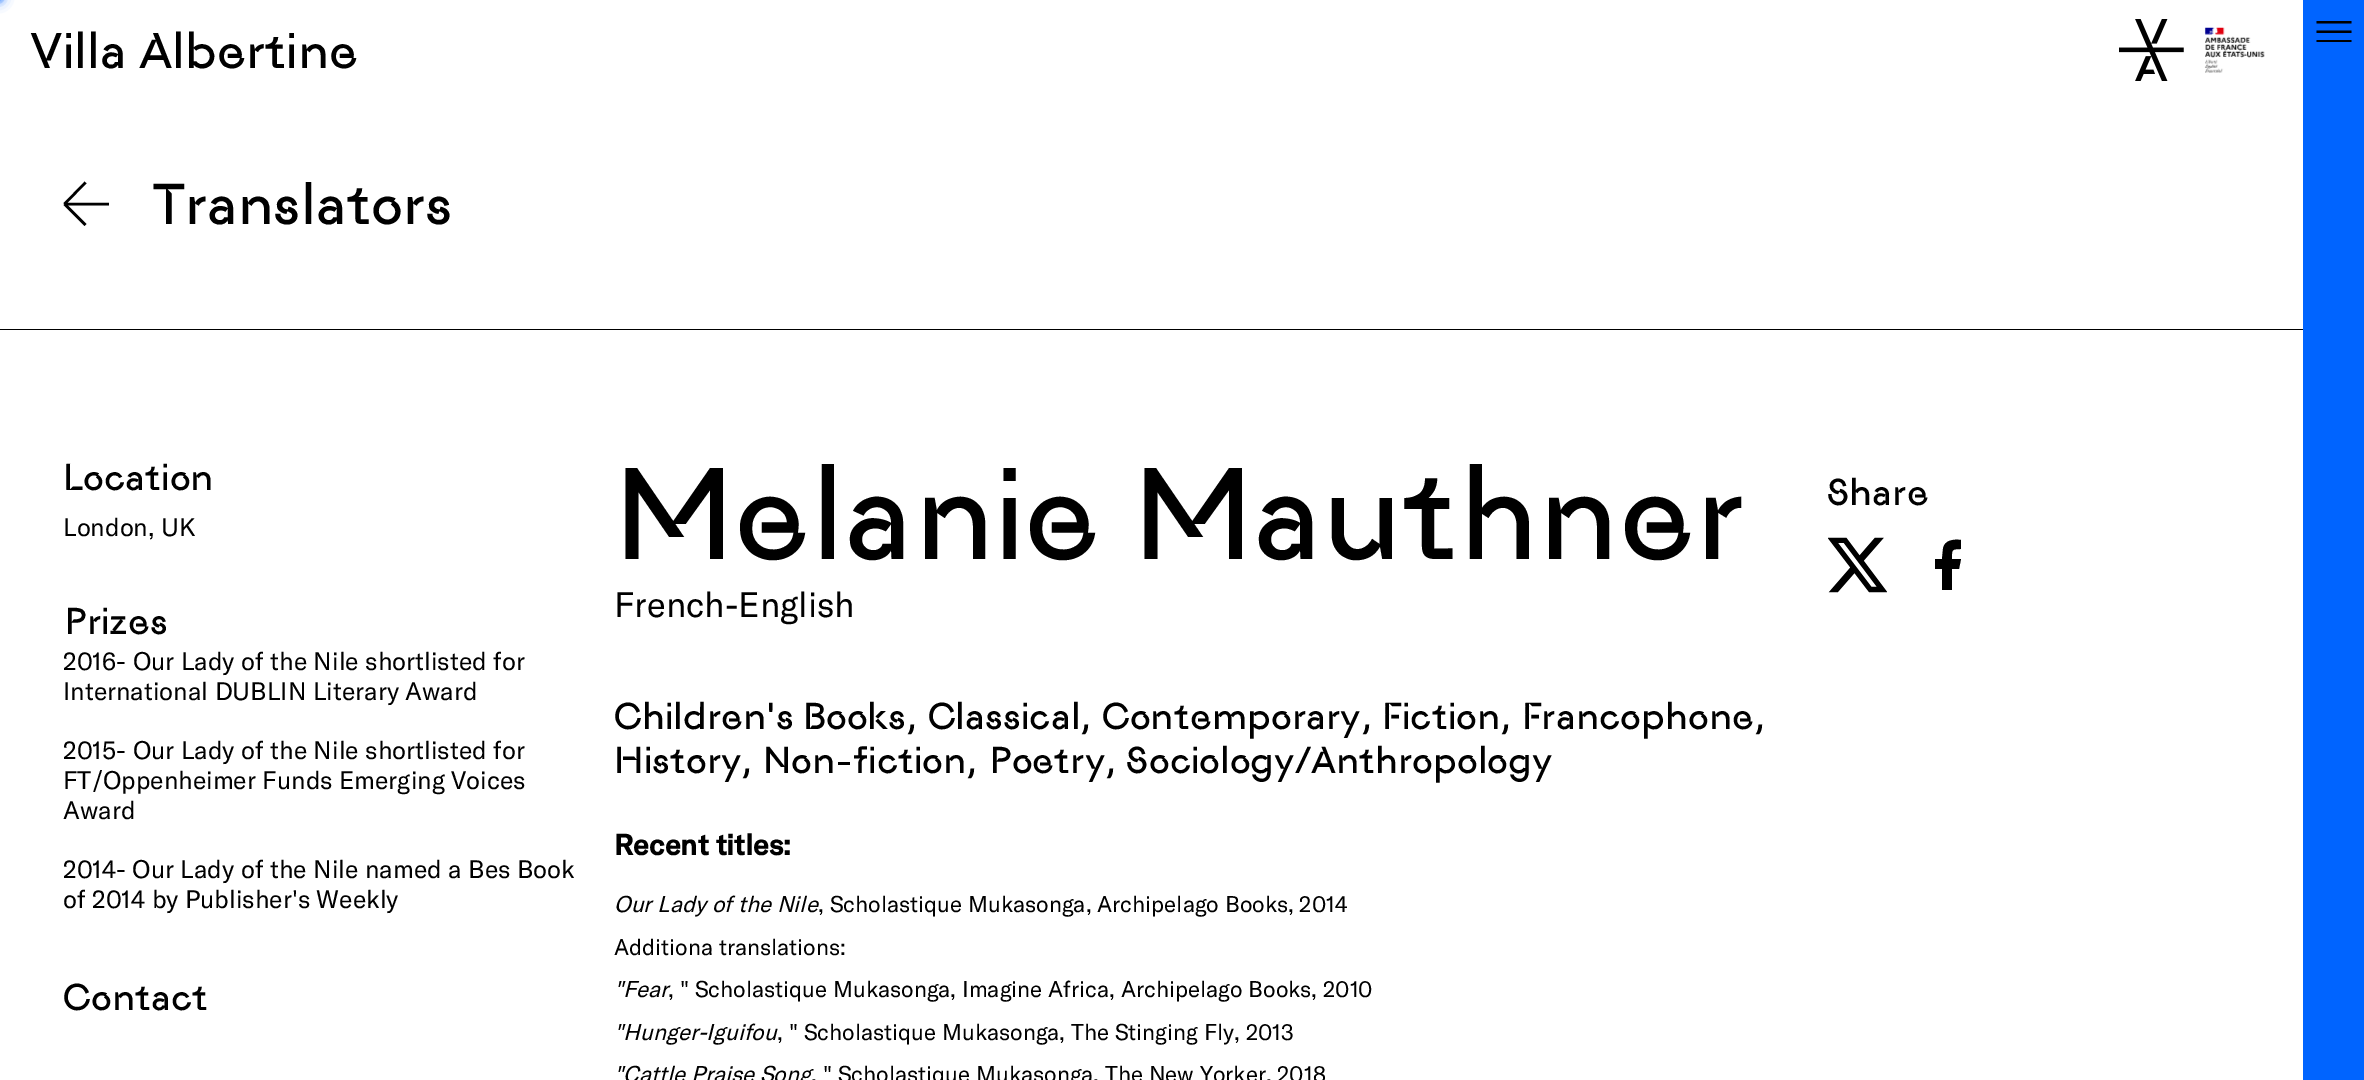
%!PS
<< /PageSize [2364 1080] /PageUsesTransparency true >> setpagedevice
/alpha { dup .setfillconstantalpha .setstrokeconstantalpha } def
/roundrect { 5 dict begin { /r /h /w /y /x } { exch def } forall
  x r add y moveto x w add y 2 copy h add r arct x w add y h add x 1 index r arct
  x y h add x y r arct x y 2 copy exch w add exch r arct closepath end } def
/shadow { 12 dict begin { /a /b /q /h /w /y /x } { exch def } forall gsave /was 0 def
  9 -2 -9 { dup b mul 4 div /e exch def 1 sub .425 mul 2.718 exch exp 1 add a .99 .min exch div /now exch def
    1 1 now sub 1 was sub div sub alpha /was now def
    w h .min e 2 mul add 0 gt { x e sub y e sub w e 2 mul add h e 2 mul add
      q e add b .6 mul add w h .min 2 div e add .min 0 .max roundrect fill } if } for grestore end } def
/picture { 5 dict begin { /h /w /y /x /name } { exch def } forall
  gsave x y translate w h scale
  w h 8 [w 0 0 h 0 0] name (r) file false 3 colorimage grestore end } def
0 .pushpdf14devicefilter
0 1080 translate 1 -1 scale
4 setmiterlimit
1 setgray
0 0 2364 1080 rectfill
0 0.392 1 setrgbcolor
-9 -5 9 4 0 3 1 shadow
-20 -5 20 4 0 6.5 1 shadow
/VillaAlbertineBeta-Regular [50 0 0 -50 0 0] selectfont
0 setgray
30 68 moveto (Villa Albertine) show
(img1.rgb) 2119 19 65 62 picture
(img2.rgb) 2204 27 61 46 picture
0 329 2303 1 rectfill
gsave
63 181 46 47 rectclip
2.5 setlinewidth
newpath 110.5 204 moveto 64.5 204 lineto 64.5 204 moveto 85.5 182.5 lineto 64.5 204 moveto 85.5 225 lineto stroke
grestore
/VillaAlbertineBeta-Regular [57.5 0 0 -57.5 0 0] selectfont
153 224 moveto (Translators) show
/VillaAlbertineBeta-Regular [37.5 0 0 -37.5 0 0] selectfont
63 490 moveto (Location) show
/GTAmerica-Regular [25 0 0 -25 0 0] selectfont
63 536 moveto (London, UK) show
/VillaAlbertineBeta-Regular [37.5 0 0 -37.5 0 0] selectfont
63 634 moveto (Prizes) show
/GTAmerica-Regular [25 0 0 -25 0 0] selectfont
63 670 moveto (2016- Our Lady of the Nile shortlisted for) show
63 700 moveto (International DUBLIN Literary Award) show
63 759 moveto (2015- Our Lady of the Nile shortlisted for) show
63 789 moveto (FT/Oppenheimer Funds Emerging Voices) show
63 819 moveto (Award) show
63 878 moveto (2014- Our Lady of the Nile named a Bes Book) show
63 908 moveto (of 2014 by Publisher's Weekly) show
/VillaAlbertineBeta-Regular [37.5 0 0 -37.5 0 0] selectfont
63 1010 moveto (Contact) show
/VillaAlbertineBeta-Regular [130 0 0 -130 0 0] selectfont
614 559 moveto (Melanie Mauthner) show
/GTAmerica-Regular [35 0 0 -35 0 0] selectfont
614 617 moveto (French-English) show
/VillaAlbertineBeta-Regular [37.5 0 0 -37.5 0 0] selectfont
614 729 moveto (Children's Books, Classical, Contemporary, Fiction, Francophone,) show
614 773 moveto (History, Non-fiction, Poetry, Sociology/Anthropology) show
/GTAmerica-Bold [28.75 0 0 -28.75 0 0] selectfont
614 855 moveto (Recent titles:) show
/GTAmerica-Italic [22.5 0 0 -22.5 0 0] selectfont
614 912 moveto (Our Lady of the Nile) show
/GTAmerica-Regular [22.5 0 0 -22.5 0 0] selectfont
818 912 moveto (, Scholastique Mukasonga, Archipelago Books, 2014) show
614 955 moveto (Additiona translations:) show
/GTAmerica-Italic [22.5 0 0 -22.5 0 0] selectfont
614 997 moveto ("Fear) show
/GTAmerica-Regular [22.5 0 0 -22.5 0 0] selectfont
668 997 moveto (, " Scholastique Mukasonga, Imagine Africa, Archipelago Books, 2010) show
/GTAmerica-Italic [22.5 0 0 -22.5 0 0] selectfont
614 1040 moveto ("Hunger-Iguifou) show
/GTAmerica-Regular [22.5 0 0 -22.5 0 0] selectfont
777 1040 moveto (, " Scholastique Mukasonga, The Stinging Fly, 2013) show
/GTAmerica-Italic [22.5 0 0 -22.5 0 0] selectfont
614 1082 moveto ("Cattle Praise Song) show
/GTAmerica-Regular [22.5 0 0 -22.5 0 0] selectfont
811 1082 moveto (, " Scholastique Mukasonga, The New Yorker, 2018) show
/VillaAlbertineBeta-Regular [37.5 0 0 -37.5 0 0] selectfont
1827 505 moveto (Share) show
(img3.rgb) 1828 537 59 56 picture
newpath 1952 569 moveto 1959 569 lineto 1961 559 lineto 1952 559 lineto 1952 550 1951 549 1961 549 curveto 1961 540 lineto 1954 539 1944 540 1943 549 curveto 1942 559 lineto 1935 559 lineto 1935 569 lineto 1942 569 lineto 1942 590 lineto 1952 590 lineto closepath fill
0 0.392 1 setrgbcolor
2303 0 61 1080 rectfill
0 setgray
newpath 2351.5 40 moveto 2351.5 42 lineto 2316.5 42 lineto 2316.5 40 lineto closepath 2351.5 30.5 moveto 2351.5 33 lineto 2316.5 33 lineto 2316.5 30.5 lineto closepath 2351.5 21 moveto 2351.5 23.5 lineto 2316.5 23.5 lineto 2316.5 21 lineto closepath eofill
.poppdf14devicefilter showpage
